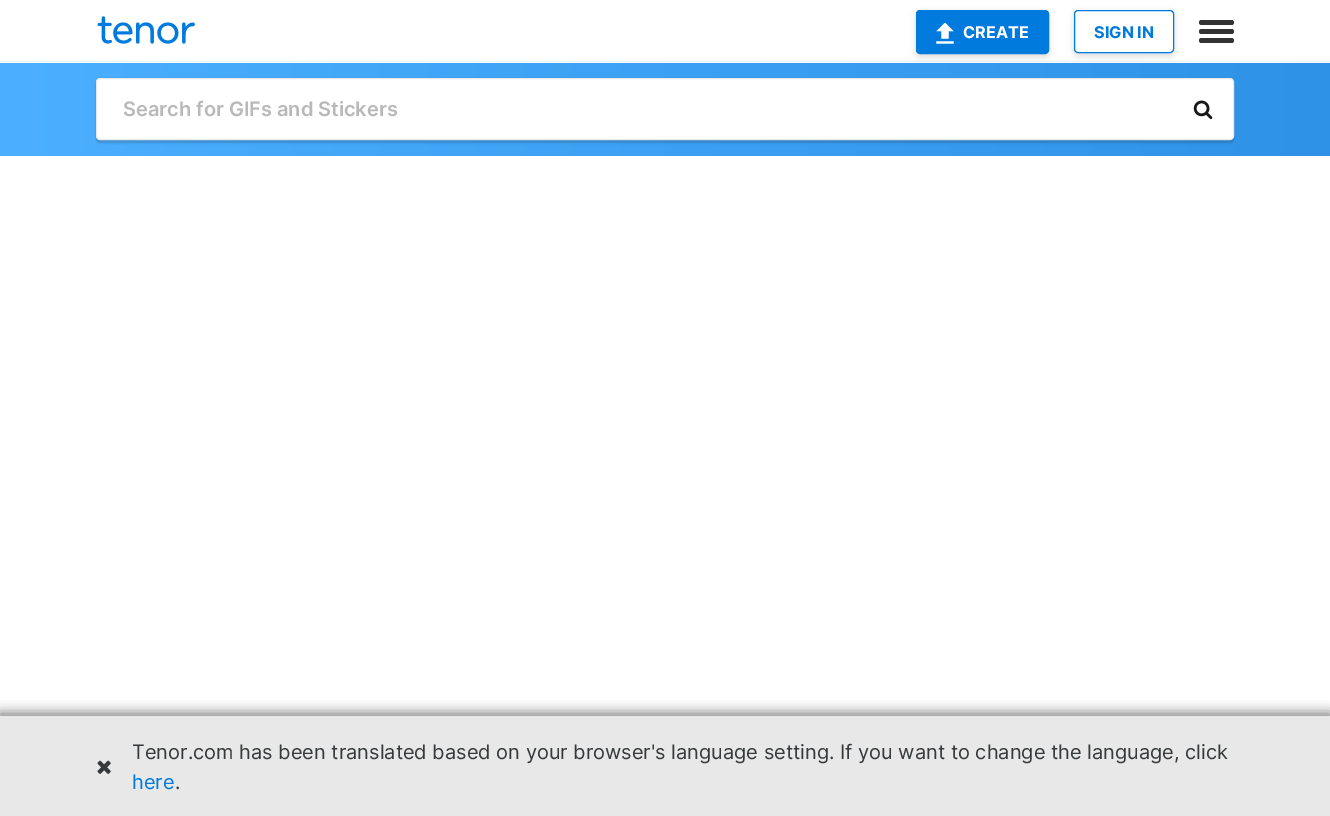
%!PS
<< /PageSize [1330 816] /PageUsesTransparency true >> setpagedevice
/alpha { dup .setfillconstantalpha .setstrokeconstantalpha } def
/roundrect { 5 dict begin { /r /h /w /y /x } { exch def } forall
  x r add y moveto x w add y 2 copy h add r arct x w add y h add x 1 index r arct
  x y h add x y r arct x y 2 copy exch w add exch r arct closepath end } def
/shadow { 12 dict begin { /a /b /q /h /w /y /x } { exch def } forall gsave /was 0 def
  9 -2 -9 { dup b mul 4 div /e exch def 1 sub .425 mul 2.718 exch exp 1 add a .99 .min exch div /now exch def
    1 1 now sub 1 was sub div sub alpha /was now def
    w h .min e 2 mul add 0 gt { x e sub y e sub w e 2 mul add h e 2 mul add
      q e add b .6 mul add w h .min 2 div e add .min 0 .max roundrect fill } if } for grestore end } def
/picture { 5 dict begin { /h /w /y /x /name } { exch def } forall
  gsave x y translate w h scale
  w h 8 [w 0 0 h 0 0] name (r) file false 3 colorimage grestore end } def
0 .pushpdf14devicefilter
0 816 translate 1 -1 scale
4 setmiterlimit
1 setgray
0 0 1330 816 rectfill
0.922 0.949 0.969 setrgbcolor
0 61 1330 1 rectfill
(img1.rgb) 97 16 98 28 picture
0.325 0.325 0.361 setrgbcolor
916 15 133 44 4 4 0.11 shadow
0 setgray
916 11 133 44 4 2 0.08 shadow
0 0.478 0.867 setrgbcolor
916.5 10.5 132 43 3.5 roundrect gsave fill grestore
stroke
(img2.rgb) 936 23 18 21 picture
/Inter-Bold [16.25 0 0 -16.25 0 0] selectfont
1 setgray
963 38 moveto (CREATE) show
0.325 0.325 0.361 setrgbcolor
1074 15 100 43 4 4 0.11 shadow
0 setgray
1074 11 100 43 4 2 0.08 shadow
1 setgray
1074.5 10.5 99 42 3.5 roundrect gsave fill grestore
0 0.478 0.867 setrgbcolor
stroke
1094 38 moveto (SIGN IN) show
0.2 setgray
1199 29 35 5 2.5 roundrect fill
1199 20 35 5 2.5 roundrect fill
1199 38 35 5 2.5 roundrect fill
gsave newpath 0 63 moveto 1330 63 lineto 1330 156 lineto 0 156 lineto closepath clip newpath
<< /ShadingType 2 /ColorSpace /DeviceRGB /Coords [0 109 1330 109] /Extend [true true] /Function << /FunctionType 2 /Domain [0 1] /C0 [0.298 0.686 1] /C1 [0.18 0.576 0.902] /N 1 >> >> shfill grestore
0 setgray
96 78 1138 62 4 0.5 0.08 shadow
96 80 1138 63 4 1 0.16 shadow
1 setgray
96.5 78.5 1137 61 3.5 roundrect gsave fill grestore
0.91 setgray
stroke
/Inter-SemiBold [20 0 0 -20 0 0] selectfont
0.725 setgray
123 116 moveto (Search for GIFs and Stickers) show
(img3.rgb) 1193 100 20 20 picture
0.6 setgray
0 714 1330 100 0 6 1 shadow
0 714 1330 100 0 6 1 shadow
0.91 setgray
0 716 1330 100 rectfill
(img4.rgb) 97 760 14 14 picture
/Inter-Regular [20 0 0 -20 0 0] selectfont
0.216 0.227 0.235 setrgbcolor
132 759 moveto (Tenor.com has been translated based on your browser's language setting. If you want to change the language, click) show
0 0.478 0.867 setrgbcolor
132 789 moveto (here) show
0.216 0.227 0.235 setrgbcolor
175 789 moveto (.) show
.poppdf14devicefilter showpage
